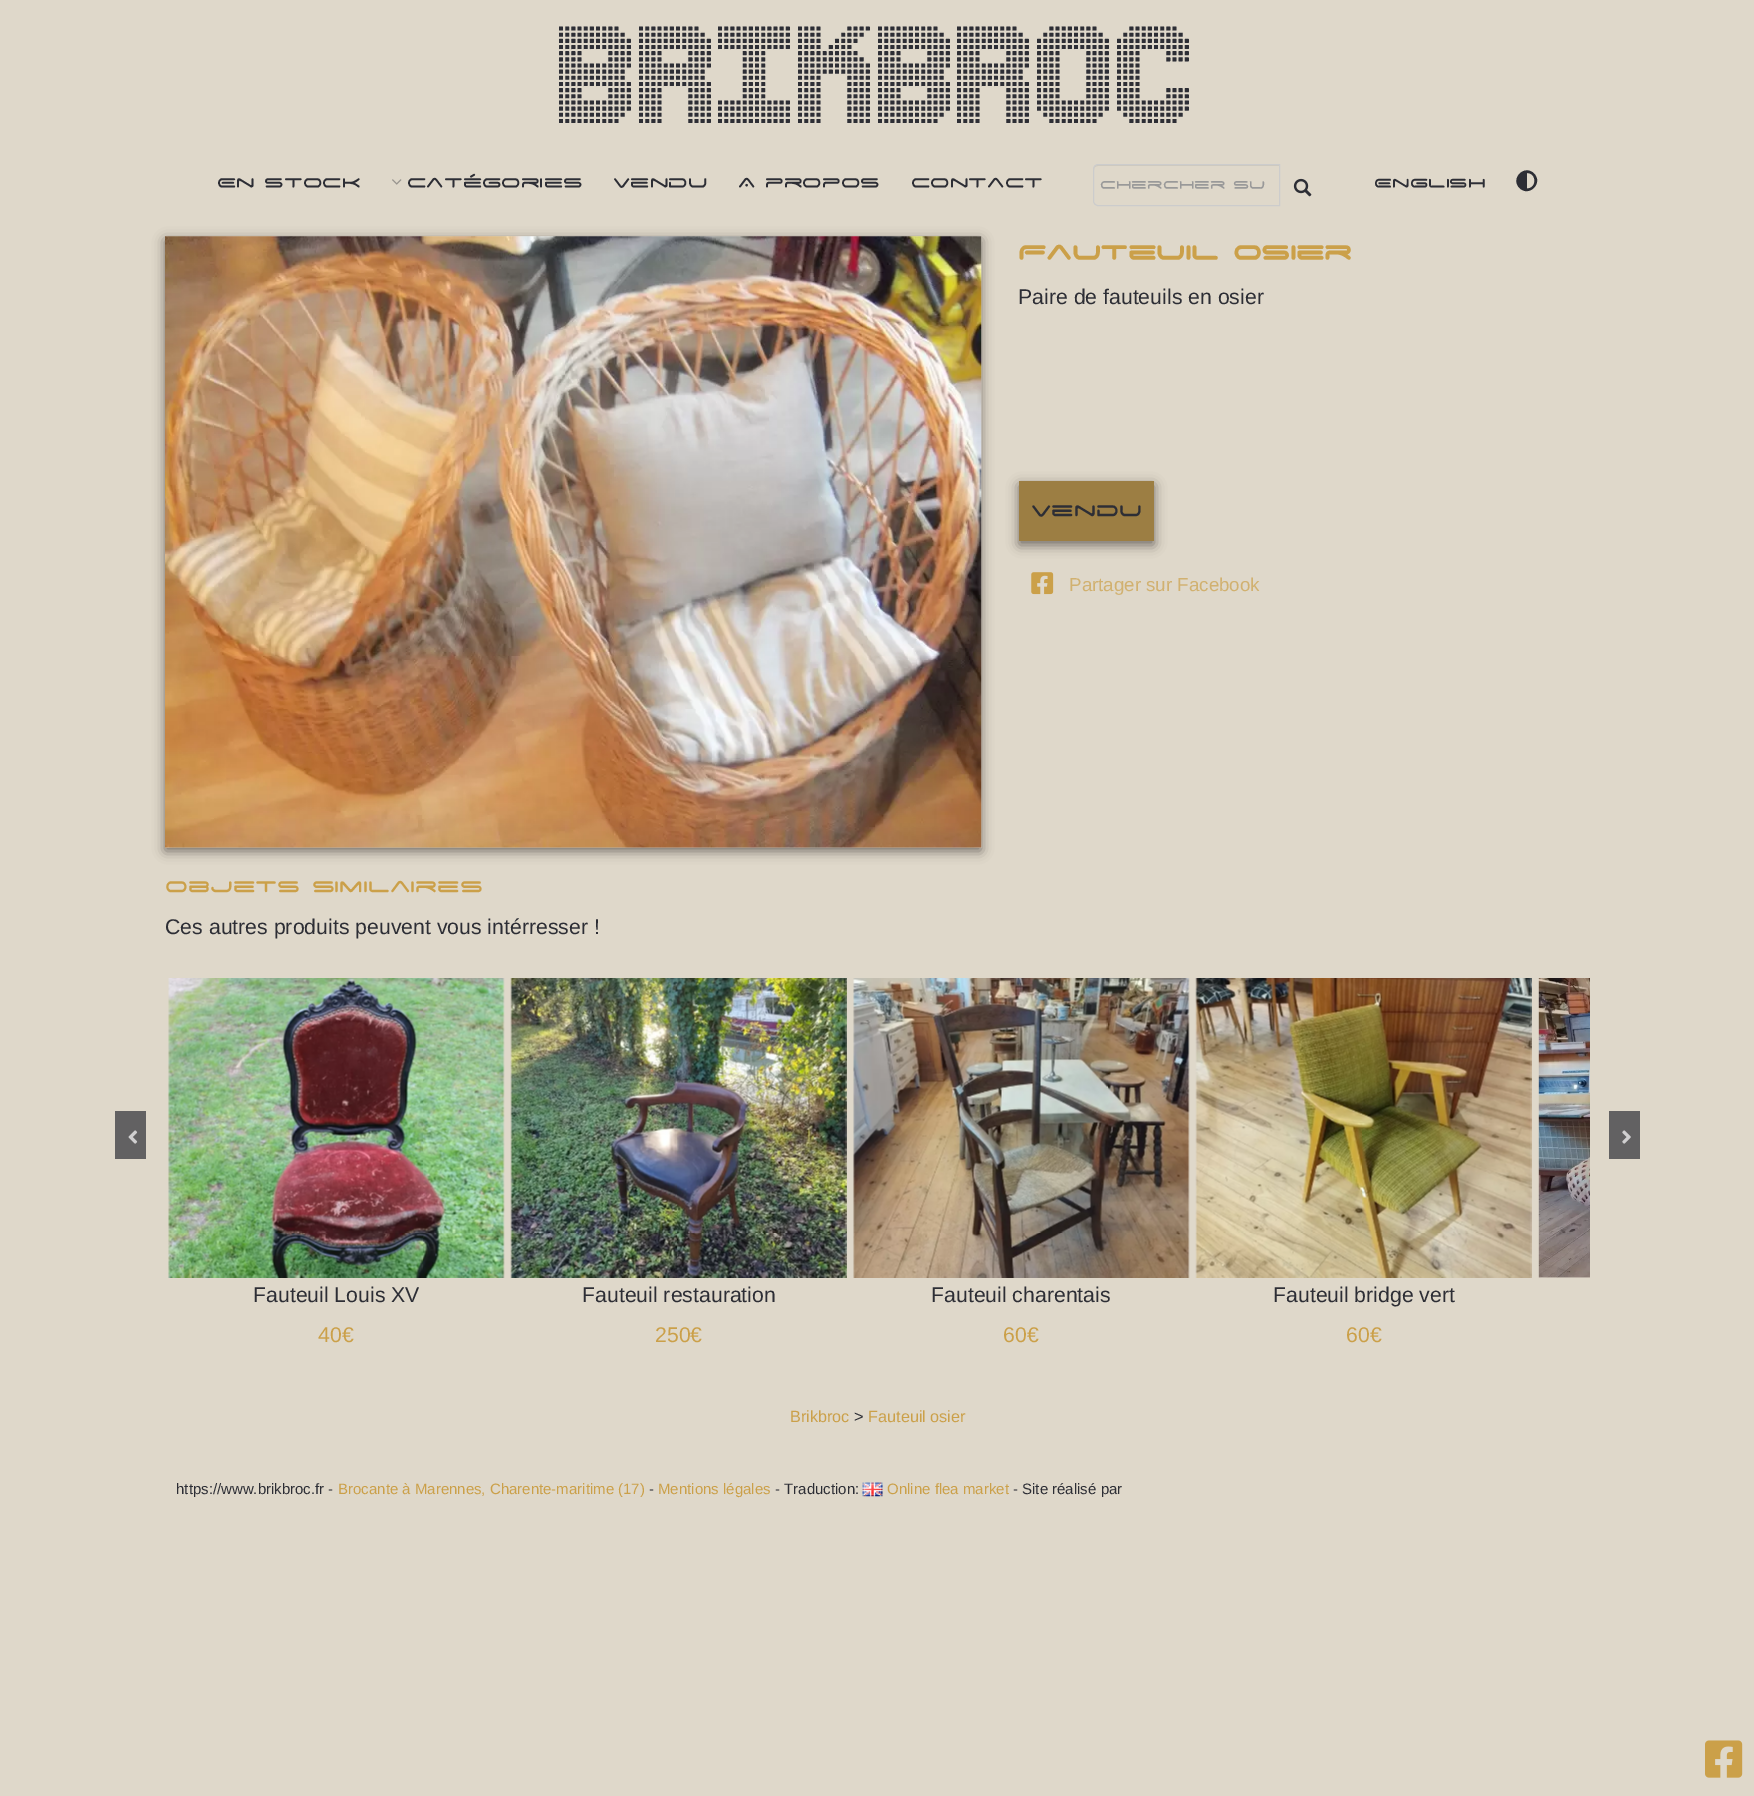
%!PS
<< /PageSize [1754 1796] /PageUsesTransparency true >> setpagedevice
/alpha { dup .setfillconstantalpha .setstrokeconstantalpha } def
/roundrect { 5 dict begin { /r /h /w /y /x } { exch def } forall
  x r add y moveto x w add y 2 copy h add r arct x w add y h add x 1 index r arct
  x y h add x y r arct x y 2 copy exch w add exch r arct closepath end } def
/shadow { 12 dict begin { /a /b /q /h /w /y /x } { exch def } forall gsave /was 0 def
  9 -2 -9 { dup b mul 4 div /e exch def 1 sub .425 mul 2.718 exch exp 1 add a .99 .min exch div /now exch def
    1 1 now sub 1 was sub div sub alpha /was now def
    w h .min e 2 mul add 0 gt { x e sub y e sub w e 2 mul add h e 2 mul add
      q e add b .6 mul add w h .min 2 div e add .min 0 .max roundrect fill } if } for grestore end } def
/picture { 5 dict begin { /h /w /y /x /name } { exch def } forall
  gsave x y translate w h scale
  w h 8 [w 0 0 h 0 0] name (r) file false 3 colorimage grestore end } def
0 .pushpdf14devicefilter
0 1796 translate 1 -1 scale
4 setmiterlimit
0.875 0.847 0.792 setrgbcolor
0 0 1754 1796 rectfill
/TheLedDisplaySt-Regular [105.25 0 0 -105.25 0 0] selectfont
0.176 0.18 0.208 setrgbcolor
559 123 moveto (Brikbroc) show
/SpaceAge-Regular [21.25 0 0 -21.25 0 0] selectfont
217 189 moveto (En Stock) show
(img1.rgb) 392 179 10 6 picture
407 189 moveto (Catégories) show
613 189 moveto (Vendu) show
738 189 moveto (A propos) show
911 189 moveto (Contact) show
0.808 0.784 0.733 setrgbcolor
newpath 1098 166 moveto 1279 166 lineto 1279 165 lineto 1097 165 lineto 1095 166 1094 168 1094 170 curveto 1094 168 1095 166 1098 166 curveto closepath fill
0.8 setgray
newpath 1098 164.5 moveto 1279.5 164.5 lineto 1279.5 205.5 lineto 1098 205.5 lineto 1095.5 205.5 1093.5 203.5 1093.5 201 curveto 1093.5 169 lineto 1093.5 166.5 1095.5 164.5 1098 164.5 curveto closepath stroke
/SpaceAge-Regular [17.5 0 0 -17.5 0 0] selectfont
0.6 setgray
1100 190 moveto (Chercher su) show
(img2.rgb) 1293 178 19 19 picture
/SpaceAge-Regular [20 0 0 -20 0 0] selectfont
0.176 0.18 0.208 setrgbcolor
1374 189 moveto (English) show
newpath 1519.5 188 moveto 1510 178.5 1524.5 164 1534 173.5 curveto 1543.5 183 1529 197.5 1519.5 188 curveto closepath 1527 188.5 moveto 1537 188.5 1537 173 1527 173 curveto closepath fill
0 setgray
165 240 816 611 0 6 0.5 shadow
(img3.rgb) 165 236 817 612 picture
/SpaceAge-Bold [31.25 0 0 -31.25 0 0] selectfont
0.796 0.627 0.286 setrgbcolor
1018 262 moveto (Fauteuil osier) show
/LiberationSans-Regular [21.25 0 0 -21.25 0 0] selectfont
0.176 0.18 0.208 setrgbcolor
1018 304 moveto (Paire de fauteuils en osier) show
0 setgray
1019 485 135 60 0 6 0.5 shadow
0.612 0.494 0.263 setrgbcolor
1019 481 135 60 rectfill
/SpaceAge-Regular [25 0 0 -25 0 0] selectfont
0.176 0.18 0.208 setrgbcolor
1031 518 moveto (Vendu) show
(img4.rgb) 1031 572 23 23 picture
/LiberationSans-Regular [18.75 0 0 -18.75 0 0] selectfont
0.82 0.694 0.439 setrgbcolor
1069 591 moveto (Partager sur Facebook) show
/SpaceAge-Regular [25 0 0 -25 0 0] selectfont
0.796 0.627 0.286 setrgbcolor
165 894 moveto (Objets Similaires) show
/LiberationSans-Regular [21.25 0 0 -21.25 0 0] selectfont
0.176 0.18 0.208 setrgbcolor
165 934 moveto (Ces autres produits peuvent vous intérresser !) show
0.384 0.38 0.384 setrgbcolor
115 1111 31 48 rectfill
(img5.rgb) 128 1130 10 14 picture
1609 1111 31 48 rectfill
(img6.rgb) 1622 1130 9 14 picture
(img7.rgb) 1538 978 52 300 picture
(img8.rgb) 168 978 337 300 picture
0.176 0.18 0.208 setrgbcolor
253 1302 moveto (Fauteuil Louis XV) show
0.796 0.627 0.286 setrgbcolor
318 1342 moveto (40€) show
(img9.rgb) 510 978 337 300 picture
0.176 0.18 0.208 setrgbcolor
582 1302 moveto (Fauteuil restauration) show
0.796 0.627 0.286 setrgbcolor
655 1342 moveto (250€) show
(img10.rgb) 853 978 337 300 picture
0.176 0.18 0.208 setrgbcolor
931 1302 moveto (Fauteuil charentais) show
0.796 0.627 0.286 setrgbcolor
1003 1342 moveto (60€) show
(img11.rgb) 1195 978 337 300 picture
0.176 0.18 0.208 setrgbcolor
1273 1302 moveto (Fauteuil bridge vert) show
0.796 0.627 0.286 setrgbcolor
1346 1342 moveto (60€) show
/LiberationSans-Regular [16.25 0 0 -16.25 0 0] selectfont
790 1422 moveto (Brikbroc) show
0.176 0.18 0.208 setrgbcolor
854 1422 moveto (>) show
0.796 0.627 0.286 setrgbcolor
868 1422 moveto (Fauteuil osier) show
/LiberationSans-Regular [15 0 0 -15 0 0] selectfont
0.176 0.18 0.208 setrgbcolor
176 1494 moveto (https://www.brikbroc.fr -) show
0.796 0.627 0.286 setrgbcolor
338 1494 moveto (Brocante à Marennes, Charente-maritime \(17\)) show
0.176 0.18 0.208 setrgbcolor
649 1494 moveto (-) show
0.796 0.627 0.286 setrgbcolor
658 1494 moveto (Mentions légales) show
0.176 0.18 0.208 setrgbcolor
775 1494 moveto (- Traduction:) show
(img12.rgb) 862 1482 21 15 picture
0.796 0.627 0.286 setrgbcolor
887 1494 moveto (Online flea market) show
0.176 0.18 0.208 setrgbcolor
1013 1494 moveto (- Site réalisé par) show
(img13.rgb) 1705 1740 38 38 picture
.poppdf14devicefilter showpage
